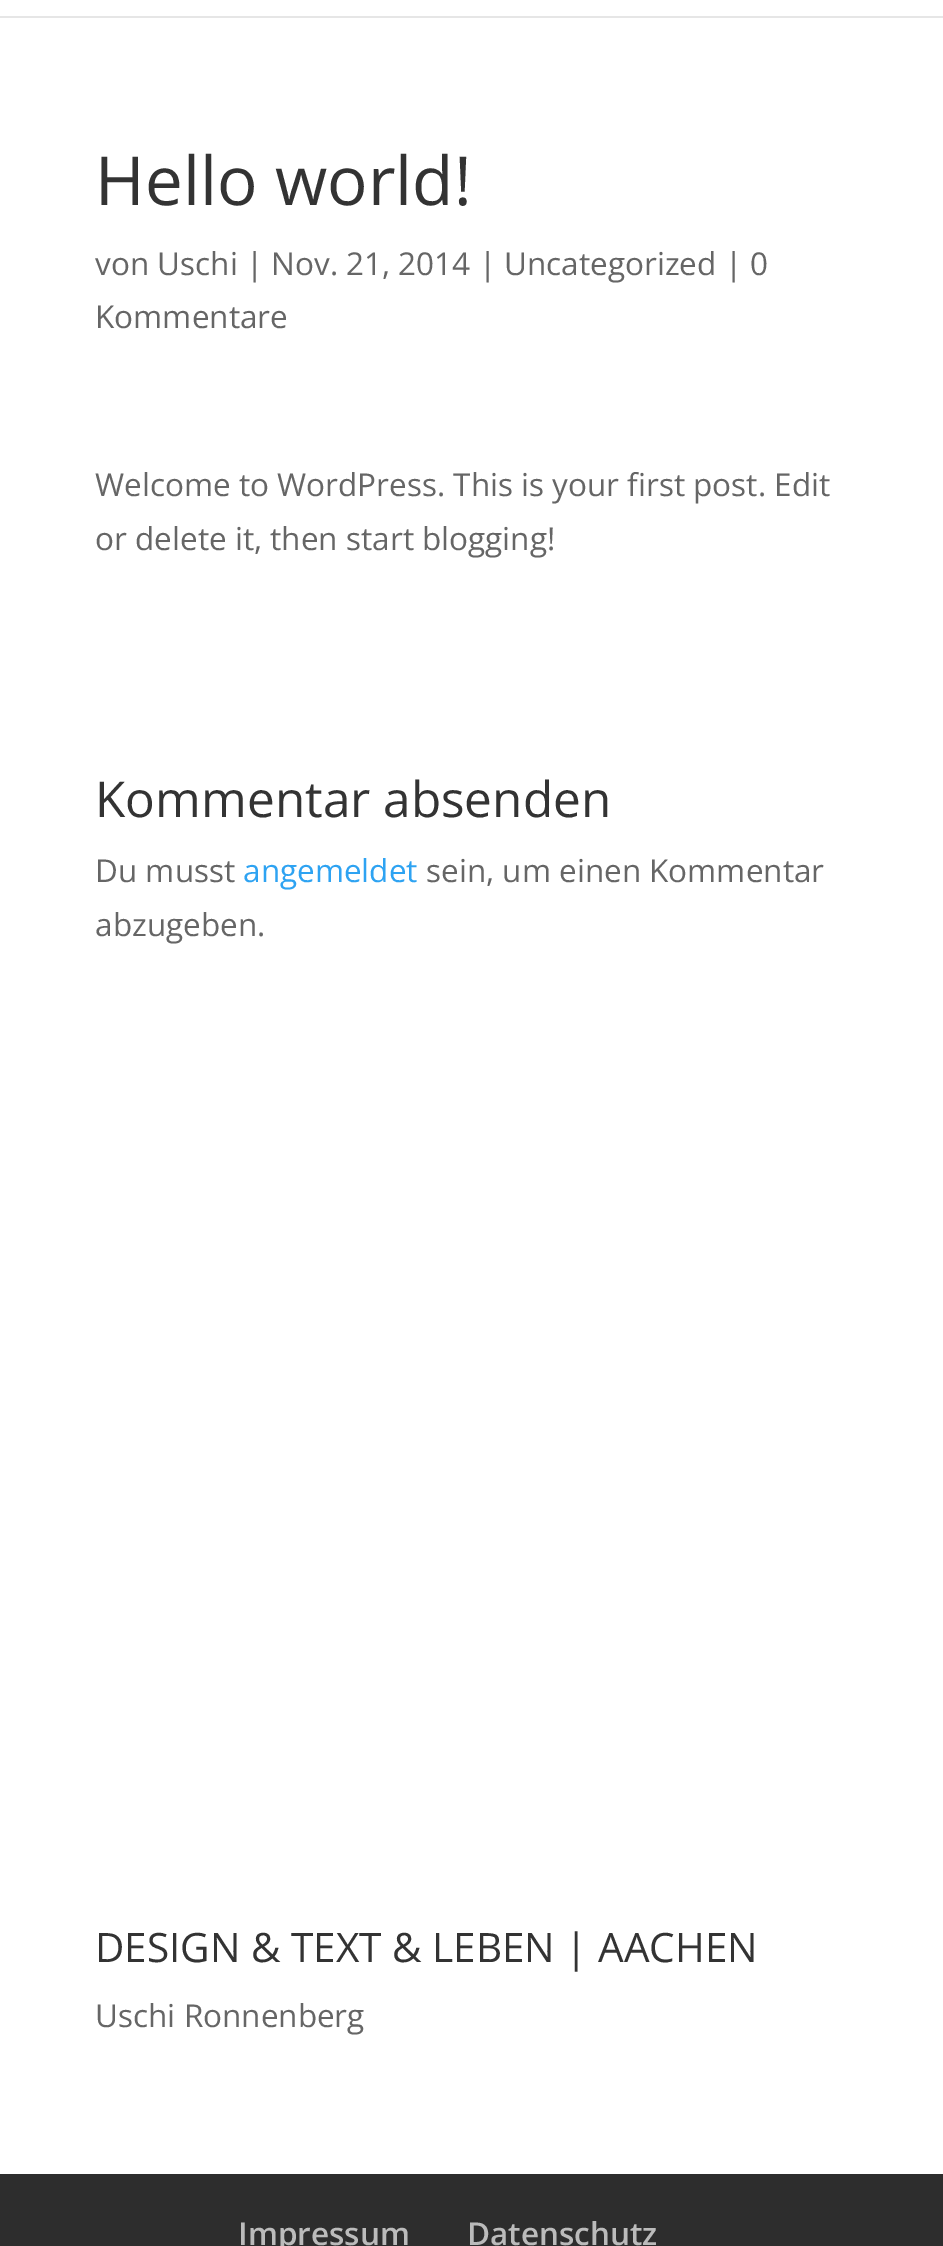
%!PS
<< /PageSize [943 2246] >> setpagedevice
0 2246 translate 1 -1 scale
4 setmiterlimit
1 setgray
0 0 943 2246 rectfill
0.902 setgray
0 16 943 2 rectfill
/OpenSans-Regular [67.5 0 0 -67.5 0 0] selectfont
0.2 setgray
95 205 moveto (Hello world!) show
/OpenSans-Regular [31.5 0 0 -31.5 0 0] selectfont
0.4 setgray
95 275 moveto (von Uschi | Nov. 21, 2014 | Uncategorized | 0) show
95 328 moveto (Kommentare) show
95 496 moveto (Welcome to WordPress. This is your first post. Edit) show
95 550 moveto (or delete it, then start blogging!) show
/OpenSans-Regular [49.5 0 0 -49.5 0 0] selectfont
0.2 setgray
95 817 moveto (Kommentar absenden) show
/OpenSans-Regular [31.5 0 0 -31.5 0 0] selectfont
0.4 setgray
95 882 moveto (Du musst) show
0.18 0.639 0.949 setrgbcolor
243 882 moveto (angemeldet) show
0.4 setgray
426 882 moveto (sein, um einen Kommentar) show
95 936 moveto (abzugeben.) show
/OpenSans-Regular [40.5 0 0 -40.5 0 0] selectfont
0.2 setgray
95 1962 moveto (DESIGN & TEXT & LEBEN | AACHEN) show
/OpenSans-Regular [31.5 0 0 -31.5 0 0] selectfont
0.4 setgray
95 2027 moveto (Uschi Ronnenberg) show
0.176 setgray
0 2174 943 72 rectfill
/OpenSans-SemiBold [31.5 0 0 -31.5 0 0] selectfont
0.733 setgray
238 2245 moveto (Impressum) show
467 2245 moveto (Datenschutz) show
showpage
